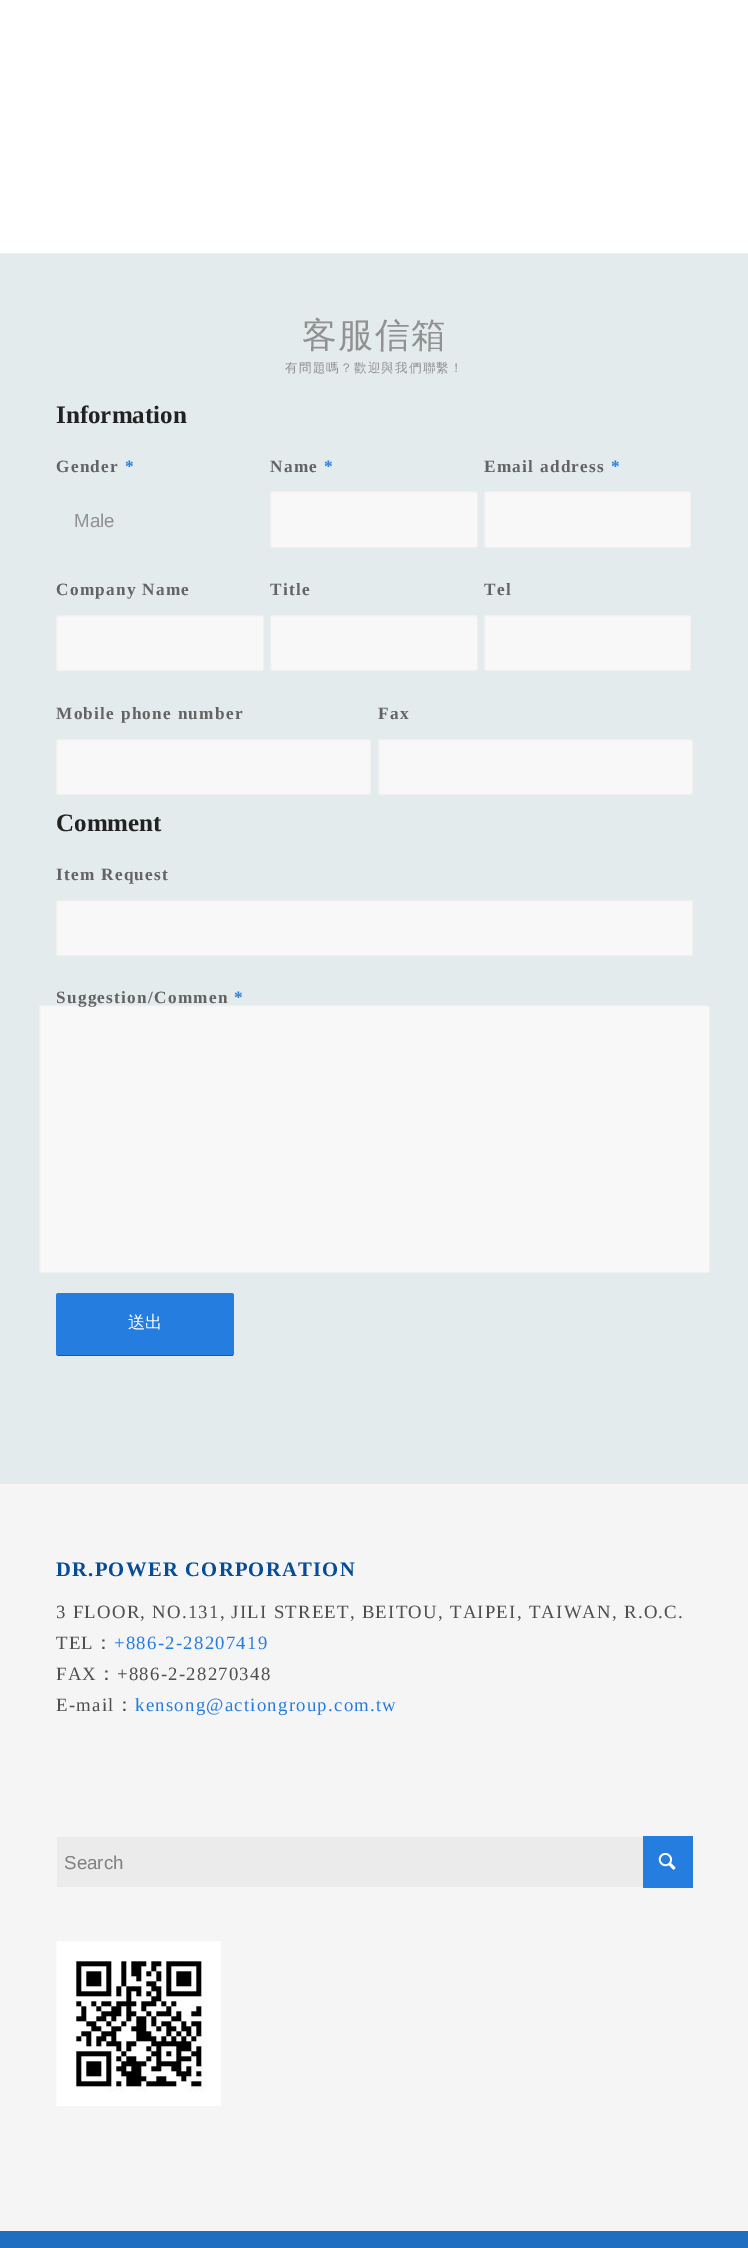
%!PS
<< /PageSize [748 2248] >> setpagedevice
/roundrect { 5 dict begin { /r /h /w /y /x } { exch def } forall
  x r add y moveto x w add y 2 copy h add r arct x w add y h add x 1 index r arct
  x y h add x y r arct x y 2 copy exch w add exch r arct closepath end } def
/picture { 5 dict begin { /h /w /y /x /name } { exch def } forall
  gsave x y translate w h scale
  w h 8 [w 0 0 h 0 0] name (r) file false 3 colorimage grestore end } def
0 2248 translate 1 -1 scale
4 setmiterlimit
1 setgray
0 0 748 2248 rectfill
0.89 0.922 0.929 setrgbcolor
0 254 748 1230 rectfill
0.941 setgray
0 253 748 1 rectfill
/WenQuanYiZenHei-Medium [35 0 0 -35 0 0] selectfont
0.569 setgray
302 347 moveto 1.25 0 (客服信箱) ashow
/WenQuanYiZenHei-Medium [12.5 0 0 -12.5 0 0] selectfont
285 372 moveto 1.25 0 (有問題嗎？歡迎與我們聯繫！) ashow
/LiberationSerif-Bold [25 0 0 -25 0 0] selectfont
0.133 setgray
56 423 moveto (Information) show
/LiberationSerif-Bold [17.25 0 0 -17.25 0 0] selectfont
0.388 setgray
56 472 moveto 1.25 0 (Gender) ashow
0.149 0.49 0.878 setrgbcolor
125 472 moveto 1.25 0 (*) ashow
/LiberationSans-Regular [18.75 0 0 -18.75 0 0] selectfont
0.569 setgray
74 527 moveto (Male) show
/LiberationSerif-Bold [17.25 0 0 -17.25 0 0] selectfont
0.388 setgray
270 472 moveto 1.25 0 (Name) ashow
0.149 0.49 0.878 setrgbcolor
324 472 moveto 1.25 0 (*) ashow
0.973 setgray
270.5 491.5 207 56 2 roundrect gsave fill grestore
0.941 setgray
stroke
0.388 setgray
484 472 moveto 1.25 0 (Email address) ashow
0.149 0.49 0.878 setrgbcolor
611 472 moveto 1.25 0 (*) ashow
0.973 setgray
484.5 491.5 206 56 2 roundrect gsave fill grestore
0.941 setgray
stroke
0.388 setgray
56 595 moveto 1.25 0 (Company Name) ashow
0.973 setgray
56.5 615.5 207 55 2 roundrect gsave fill grestore
0.941 setgray
stroke
0.388 setgray
270 595 moveto 1.25 0 (Title) ashow
0.973 setgray
270.5 615.5 207 55 2 roundrect gsave fill grestore
0.941 setgray
stroke
0.388 setgray
484 595 moveto 1.25 0 (Tel) ashow
0.973 setgray
484.5 615.5 206 55 2 roundrect gsave fill grestore
0.941 setgray
stroke
0.388 setgray
56 719 moveto 1.25 0 (Mobile phone number) ashow
0.973 setgray
56.5 739.5 314 55 2 roundrect gsave fill grestore
0.941 setgray
stroke
0.388 setgray
378 719 moveto 1.25 0 (Fax) ashow
0.973 setgray
378.5 739.5 314 55 2 roundrect gsave fill grestore
0.941 setgray
stroke
/LiberationSerif-Bold [25 0 0 -25 0 0] selectfont
0.133 setgray
56 831 moveto (Comment) show
/LiberationSerif-Bold [17.25 0 0 -17.25 0 0] selectfont
0.388 setgray
56 880 moveto 1.25 0 (Item Request) ashow
0.973 setgray
56.5 900.5 636 55 2 roundrect gsave fill grestore
0.941 setgray
stroke
0.973 setgray
39.5 1005.5 670 267 2 roundrect gsave fill grestore
0.941 setgray
stroke
0.388 setgray
56 1003 moveto 1.25 0 (Suggestion/Commen) ashow
0.149 0.49 0.878 setrgbcolor
234 1003 moveto 1.25 0 (*) ashow
56 1293 178 63 2.5 roundrect fill
0.016 0.357 0.753 setrgbcolor
58 1355 175 1 rectfill
/WenQuanYiZenHei-Medium [17.25 0 0 -17.25 0 0] selectfont
1 setgray
128 1328 moveto (送出) show
0.961 setgray
0 1484 748 747 rectfill
/LiberationSerif-Bold [20.6 0 0 -20.6 0 0] selectfont
0.024 0.298 0.588 setrgbcolor
56 1576 moveto 1.25 0 (DR.POWER CORPORATION) ashow
/LiberationSerif-Regular [18.75 0 0 -18.75 0 0] selectfont
0.31 setgray
56 1618 moveto 1.25 0 (3 FLOOR, NO.131, JILI STREET, BEITOU, TAIPEI, TAIWAN, R.O.C.) ashow
56 1649 moveto 1.25 0 (TEL) ashow
/WenQuanYiZenHei-Medium [18.75 0 0 -18.75 0 0] selectfont
94 1649 moveto 1.25 0 (：) ashow
/LiberationSerif-Regular [18.75 0 0 -18.75 0 0] selectfont
0.149 0.49 0.878 setrgbcolor
114 1649 moveto 1.25 0 (+886-2-28207419) ashow
0.31 setgray
56 1680 moveto 1.25 0 (FAX) ashow
/WenQuanYiZenHei-Medium [18.75 0 0 -18.75 0 0] selectfont
97 1680 moveto 1.25 0 (：) ashow
/LiberationSerif-Regular [18.75 0 0 -18.75 0 0] selectfont
117 1680 moveto 1.25 0 (+886-2-28270348) ashow
56 1711 moveto 1.25 0 (E-mail) ashow
/WenQuanYiZenHei-Medium [18.75 0 0 -18.75 0 0] selectfont
115 1711 moveto 1.25 0 (：) ashow
/LiberationSerif-Regular [18.75 0 0 -18.75 0 0] selectfont
0.149 0.49 0.878 setrgbcolor
135 1711 moveto 1.25 0 (kensong@actiongroup.com.tw) ashow
0.922 setgray
57 1837 586 50 rectfill
/LiberationSans-Regular [18.75 0 0 -18.75 0 0] selectfont
0.51 setgray
64 1869 moveto (Search) show
0.149 0.49 0.878 setrgbcolor
643 1836 50 52 rectfill
(img1.rgb) 658 1852 18 18 picture
(img2.rgb) 56 1941 165 165 picture
0.122 0.431 0.761 setrgbcolor
0 2231 748 17 rectfill
showpage
